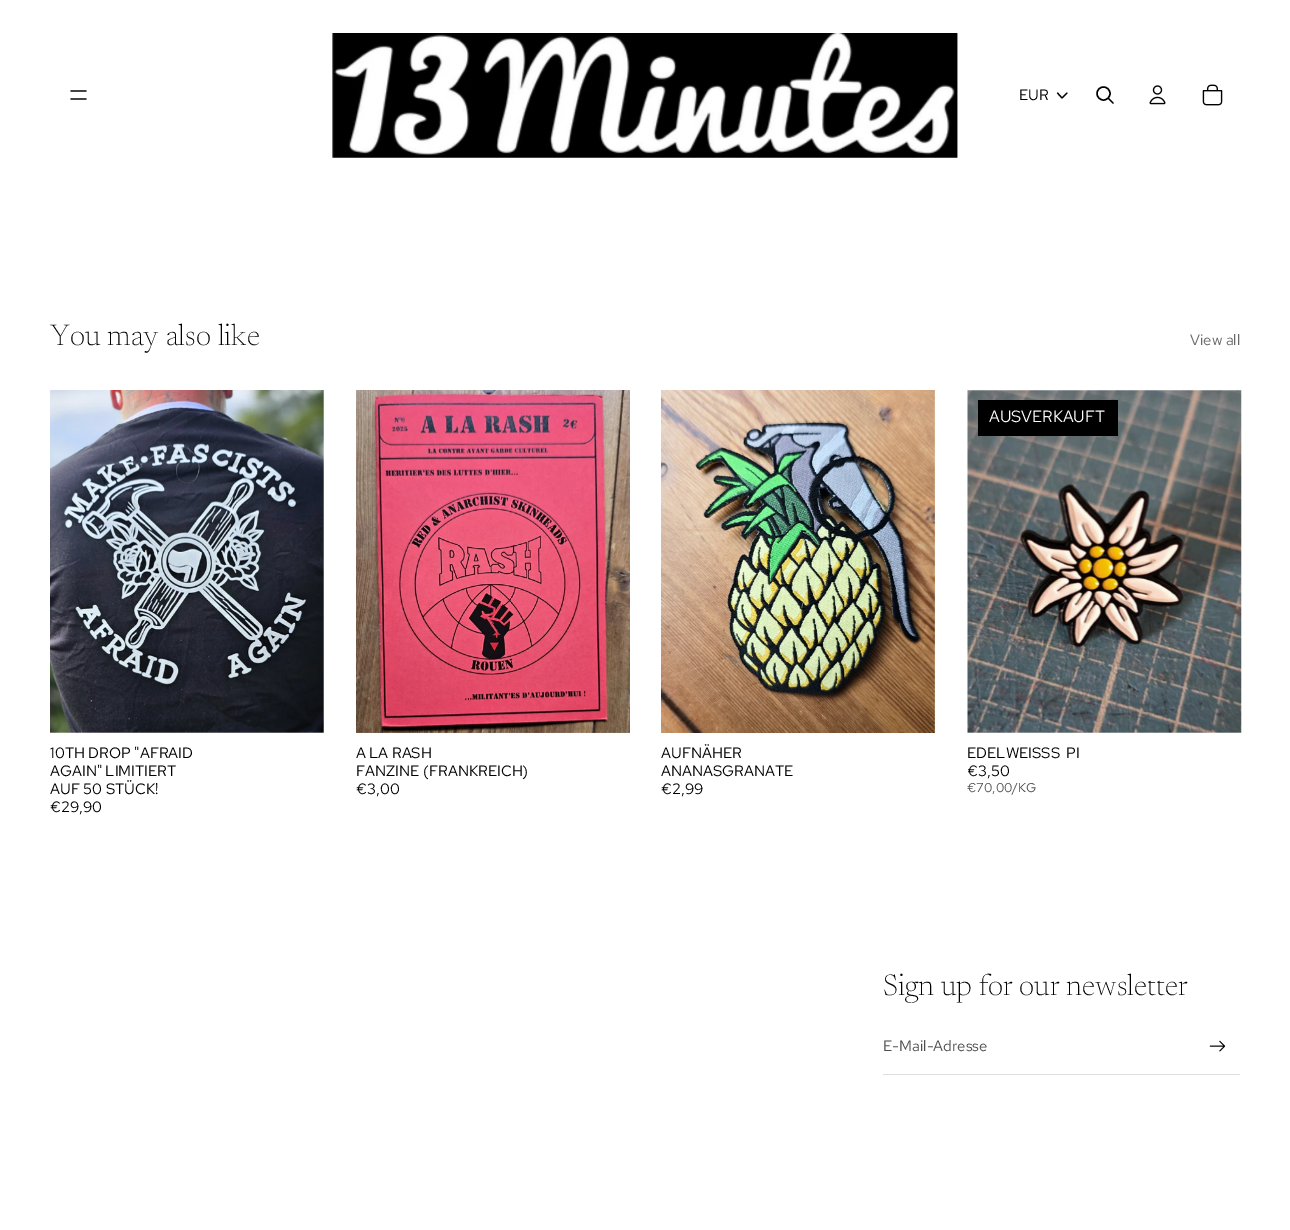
%!PS
<< /PageSize [1290 1230] >> setpagedevice
/picture { 5 dict begin { /h /w /y /x /name } { exch def } forall
  gsave x y translate w h scale
  w h 8 [w 0 0 h 0 0] name (r) file false 3 colorimage grestore end } def
0 1230 translate 1 -1 scale
4 setmiterlimit
1 setgray
0 0 1290 1230 rectfill
0 setgray
1.2 setlinewidth
1 setlinecap
newpath 71 91 moveto 86 91 lineto 71 99 moveto 86 99 lineto stroke
(img1.rgb) 332 33 626 125 picture
/RedHatText-Regular [15 0 0 -15 0 0] selectfont
1019 100 moveto (EUR) show
1 setlinejoin
newpath 1067 93 moveto 1062 98 lineto 1057.5 93 lineto stroke
1.4 setlinewidth
0 setlinecap
0 setlinejoin
newpath 1103.5 93.5 6.5 0 360 arc closepath stroke
1 setlinecap
1 setlinejoin
newpath 1108.5 98.5 moveto 1113 103 lineto stroke
(img2.rgb) 1149 85 17 20 picture
(img3.rgb) 1202 84 21 22 picture
/Newsreader-ExtraLight [30 0 0 -30 0 0] selectfont
50 345 moveto (You may also like) show
/RedHatText-Regular [15 0 0 -15 0 0] selectfont
0.4 setgray
1190 345 moveto (View all) show
(img4.rgb) 50 390 274 343 picture
0 setgray
50 758 moveto (10TH DROP "AFRAID) show
50 776 moveto (AGAIN" LIMITIERT) show
50 794 moveto (AUF 50 STÜCK!) show
50 812 moveto (€29,90) show
(img5.rgb) 356 390 274 343 picture
356 758 moveto (A LA RASH) show
356 776 moveto (FANZINE \(FRANKREICH\)) show
356 794 moveto (€3,00) show
(img6.rgb) 661 390 274 343 picture
661 758 moveto (AUFNÄHER) show
661 776 moveto (ANANASGRANATE) show
661 794 moveto (€2,99) show
(img7.rgb) 967 390 275 343 picture
978 400 140 36 rectfill
/RedHatText-Regular [16.25 0 0 -16.25 0 0] selectfont
1 setgray
989 422 moveto (AUSVERKAUFT) show
/RedHatText-Regular [15 0 0 -15 0 0] selectfont
0 setgray
967 758 moveto (EDELWEISS) show
1051 758 moveto 2 0 32 (S PI) widthshow
gsave
968 390 272 426 rectclip
967 776 moveto (€3,50) show
grestore
/RedHatText-Regular [12.75 0 0 -12.75 0 0] selectfont
0.302 setgray
967 792 moveto (€70,00/KG) show
/Newsreader-ExtraLight [30 0 0 -30 0 0] selectfont
0 setgray
883 995 moveto (Sign up for our newsletter) show
0.871 setgray
883 1074 357 1 rectfill
/RedHatText-Regular [15 0 0 -15 0 0] selectfont
0.302 setgray
883 1051 moveto (E-Mail-Adresse) show
(img8.rgb) 1209 1040 17 12 picture
showpage
